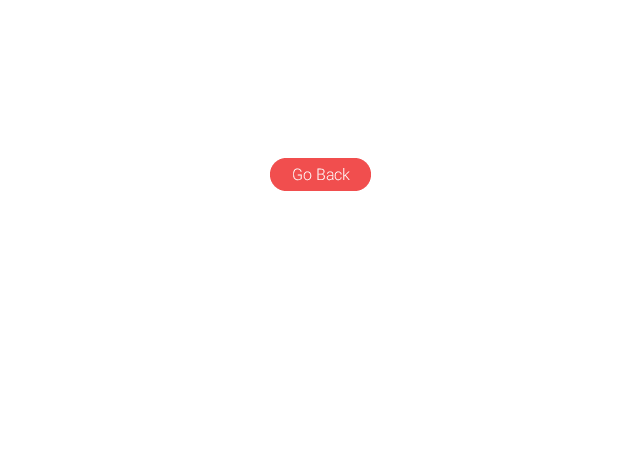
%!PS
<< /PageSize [643 474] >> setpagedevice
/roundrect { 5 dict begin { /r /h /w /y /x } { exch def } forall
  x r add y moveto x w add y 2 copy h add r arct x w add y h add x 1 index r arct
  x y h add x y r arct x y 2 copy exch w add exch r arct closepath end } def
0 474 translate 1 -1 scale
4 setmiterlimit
1 setgray
0 0 643 474 rectfill
0.945 0.306 0.306 setrgbcolor
270 158 101 33 16.5 roundrect fill
/Roboto-Light [16 0 0 -16 0 0] selectfont
1 setgray
292 180 moveto (Go Back) show
showpage
